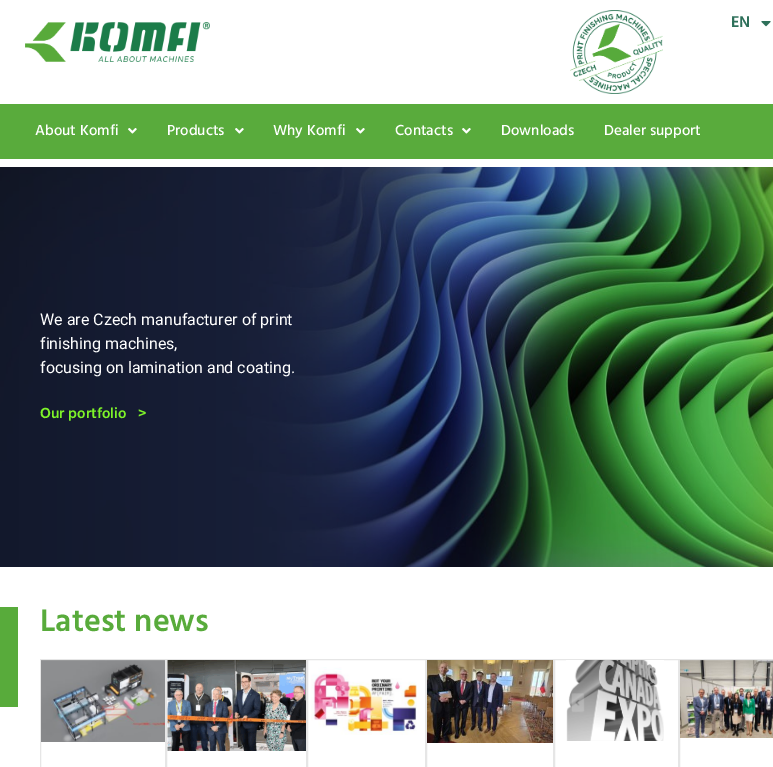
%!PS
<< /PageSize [773 767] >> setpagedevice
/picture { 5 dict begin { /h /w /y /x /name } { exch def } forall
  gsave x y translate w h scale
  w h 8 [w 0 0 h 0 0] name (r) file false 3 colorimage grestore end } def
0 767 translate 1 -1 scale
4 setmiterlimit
1 setgray
0 0 773 767 rectfill
(img1.rgb) 25 22 185 40 picture
(img2.rgb) 570 10 93 84 picture
/Hind-SemiBold [16 0 0 -16 0 0] selectfont
0.18 0.439 0.353 setrgbcolor
731 27 moveto (EN) show
(img3.rgb) 761 21 10 6 picture
0.349 0.671 0.235 setrgbcolor
0 104 773 55 rectfill
/Hind-Medium [15 0 0 -15 0 0] selectfont
1 setgray
35 135 moveto (About Komfi) show
(img4.rgb) 128 128 9 6 picture
167 135 moveto (Products) show
(img4.rgb) 235 128 9 6 picture
273 135 moveto (Why Komfi) show
(img4.rgb) 356 128 9 6 picture
395 135 moveto (Contacts) show
(img4.rgb) 462 128 9 6 picture
501 135 moveto (Downloads) show
604 135 moveto (Dealer support) show
(img5.rgb) 0 167 773 400 picture
/Roboto-Regular [16 0 0 -16 0 0] selectfont
40 325 moveto (We are Czech manufacturer of print) show
40 349 moveto (finishing machines,) show
40 373 moveto (focusing on lamination and coating.) show
/Hind-SemiBold [15 0 0 -15 0 0] selectfont
0.494 0.953 0.161 setrgbcolor
40 418 moveto (Our portfolio   >) show
0.345 0.671 0.231 setrgbcolor
0 607 18 100 rectfill
/Hind-SemiBold [32 0 0 -32 0 0] selectfont
40 631 moveto (Latest news) show
0.902 setgray
40.5 659.5 125 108 rectstroke
(img6.rgb) 41 660 124 82 picture
166.5 659.5 140 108 rectstroke
(img7.rgb) 167 660 139 91 picture
307.5 659.5 118 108 rectstroke
(img8.rgb) 311 667 106 68 picture
426.5 659.5 127 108 rectstroke
(img9.rgb) 427 660 126 83 picture
554.5 659.5 124 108 rectstroke
(img10.rgb) 566 660 98 81 picture
679.5 659.5 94 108 rectstroke
(img11.rgb) 680 660 93 78 picture
showpage
